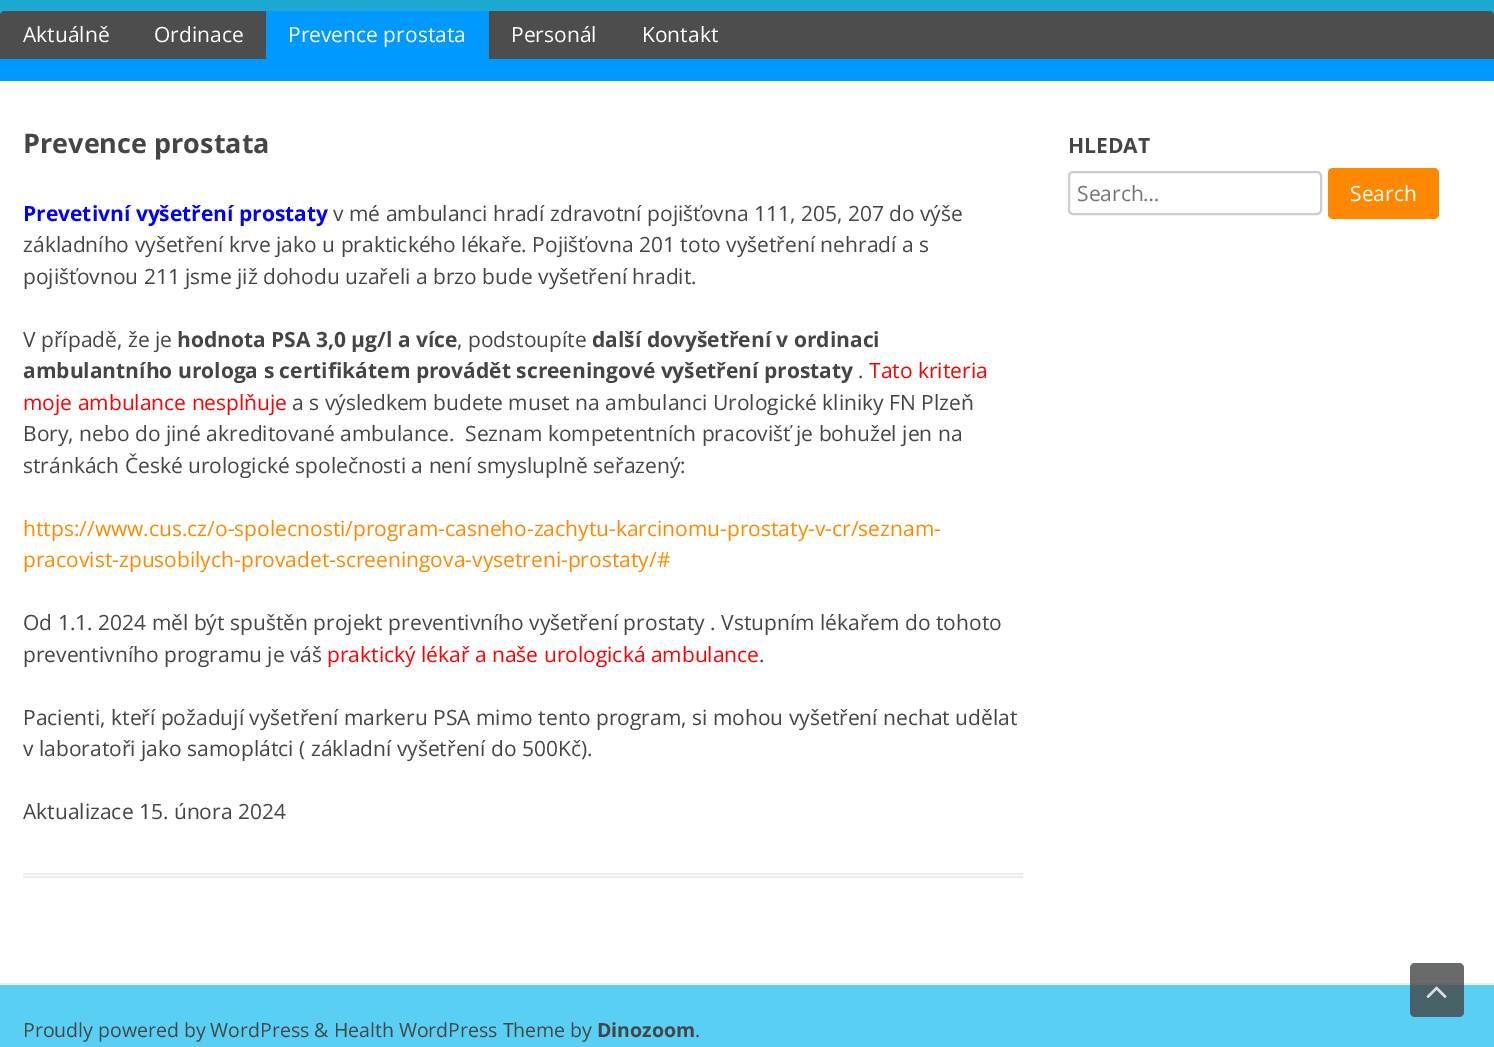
%!PS
<< /PageSize [1494 1047] /PageUsesTransparency true >> setpagedevice
/alpha { dup .setfillconstantalpha .setstrokeconstantalpha } def
/roundrect { 5 dict begin { /r /h /w /y /x } { exch def } forall
  x r add y moveto x w add y 2 copy h add r arct x w add y h add x 1 index r arct
  x y h add x y r arct x y 2 copy exch w add exch r arct closepath end } def
/picture { 5 dict begin { /h /w /y /x /name } { exch def } forall
  gsave x y translate w h scale
  w h 8 [w 0 0 h 0 0] name (r) file false 3 colorimage grestore end } def
0 .pushpdf14devicefilter
0 1047 translate 1 -1 scale
4 setmiterlimit
0.349 0.812 0.957 setrgbcolor
0 0 1494 1047 rectfill
(img1.rgb) 0 0 1494 16 picture
0.302 setgray
newpath 5 11 moveto 1489 11 lineto 1492 11 1494 13 1494 16 curveto 1494 81 lineto 0 81 lineto 0 16 lineto 0 13 2 11 5 11 curveto closepath fill
/OpenSans-Regular [21 0 0 -21 0 0] selectfont
1 setgray
23 42 moveto (Aktuálně) show
154 42 moveto (Ordinace) show
0 0.6 1 setrgbcolor
266 11 223 48 rectfill
1 setgray
288 42 moveto (Prevence prostata) show
511 42 moveto (Personál) show
642 42 moveto (Kontakt) show
0 0.6 1 setrgbcolor
0 59 1494 22 rectfill
1 setgray
0 81 1494 902 rectfill
0.922 0.929 0.929 setrgbcolor
23 873 1000 2 rectfill
23 876 1000 2 rectfill
/OpenSans-Bold [27 0 0 -27 0 0] selectfont
0.267 0.271 0.271 setrgbcolor
23 153 moveto (Prevence prostata) show
/OpenSans-Bold [21 0 0 -21 0 0] selectfont
0 0 1 setrgbcolor
23 221 moveto (Prevetivní vyšetření prostaty) show
/OpenSans-Regular [21 0 0 -21 0 0] selectfont
0.267 0.271 0.271 setrgbcolor
333 221 moveto (v mé ambulanci hradí zdravotní pojišťovna 111, 205, 207 do výše) show
23 252 moveto (základního vyšetření krve jako u praktického lékaře. Pojišťovna 201 toto vyšetření nehradí a s) show
23 284 moveto (pojišťovnou 211 jsme již dohodu uzařeli a brzo bude vyšetření hradit.) show
23 347 moveto (V případě, že je) show
/OpenSans-Bold [21 0 0 -21 0 0] selectfont
177 347 moveto (hodnota PSA 3,0 µg/l a více) show
/OpenSans-Regular [21 0 0 -21 0 0] selectfont
457 347 moveto (, podstoupíte) show
/OpenSans-Bold [21 0 0 -21 0 0] selectfont
592 347 moveto (další dovyšetření v ordinaci) show
23 378 moveto (ambulantního urologa s certifikátem provádět screeningové vyšetření prostaty) show
/OpenSans-Regular [21 0 0 -21 0 0] selectfont
858 378 moveto (.) show
1 0 0 setrgbcolor
869 378 moveto (Tato kriteria) show
23 410 moveto (moje ambulance nesplňuje) show
0.267 0.271 0.271 setrgbcolor
292 410 moveto (a s výsledkem budete muset na ambulanci Urologické kliniky FN Plzeň) show
23 441 moveto (Bory, nebo do jiné akreditované ambulance.  Seznam kompetentních pracovišť je bohužel jen na) show
23 473 moveto (stránkách České urologické společnosti a není smysluplně seřazený:) show
1 0.533 0 setrgbcolor
23 536 moveto (https://www.cus.cz/o-spolecnosti/program-casneho-zachytu-karcinomu-prostaty-v-cr/seznam-) show
23 567 moveto (pracovist-zpusobilych-provadet-screeningova-vysetreni-prostaty/#) show
0.267 0.271 0.271 setrgbcolor
23 630 moveto (Od 1.1. 2024 měl být spuštěn projekt preventivního vyšetření prostaty . Vstupním lékařem do tohoto) show
23 662 moveto (preventivního programu je váš) show
1 0 0 setrgbcolor
327 662 moveto (praktický lékař a naše urologická ambulance) show
0.267 0.271 0.271 setrgbcolor
759 662 moveto (.) show
23 725 moveto (Pacienti, kteří požadují vyšetření markeru PSA mimo tento program, si mohou vyšetření nechat udělat) show
23 756 moveto (v laboratoři jako samoplátci \( základní vyšetření do 500Kč\).) show
23 819 moveto (Aktualizace 15. února 2024) show
/OpenSans-Bold [21 0 0 -21 0 0] selectfont
1068 153 moveto (HLEDAT) show
0.8 setgray
2 setlinewidth
1069 172 252 42 4 roundrect stroke
/OpenSans-Regular [21 0 0 -21 0 0] selectfont
0.459 setgray
1077 201 moveto (Search…) show
1 0.533 0 setrgbcolor
1328 168 111 51 5 roundrect fill
1 setgray
1350 201 moveto (Search) show
0.922 0.929 0.929 setrgbcolor
0 983 1494 2 rectfill
0.8 alpha
0.267 0.271 0.271 setrgbcolor
1410 963 54 54 5 roundrect fill
1 alpha
(img2.rgb) 1426 986 21 12 picture
/OpenSans-Regular [19.5 0 0 -19.5 0 0] selectfont
23 1037 moveto (Proudly powered by WordPress & Health WordPress Theme by) show
/OpenSans-Bold [19.5 0 0 -19.5 0 0] selectfont
597 1037 moveto (Dinozoom) show
/OpenSans-Regular [19.5 0 0 -19.5 0 0] selectfont
695 1037 moveto (.) show
.poppdf14devicefilter showpage
